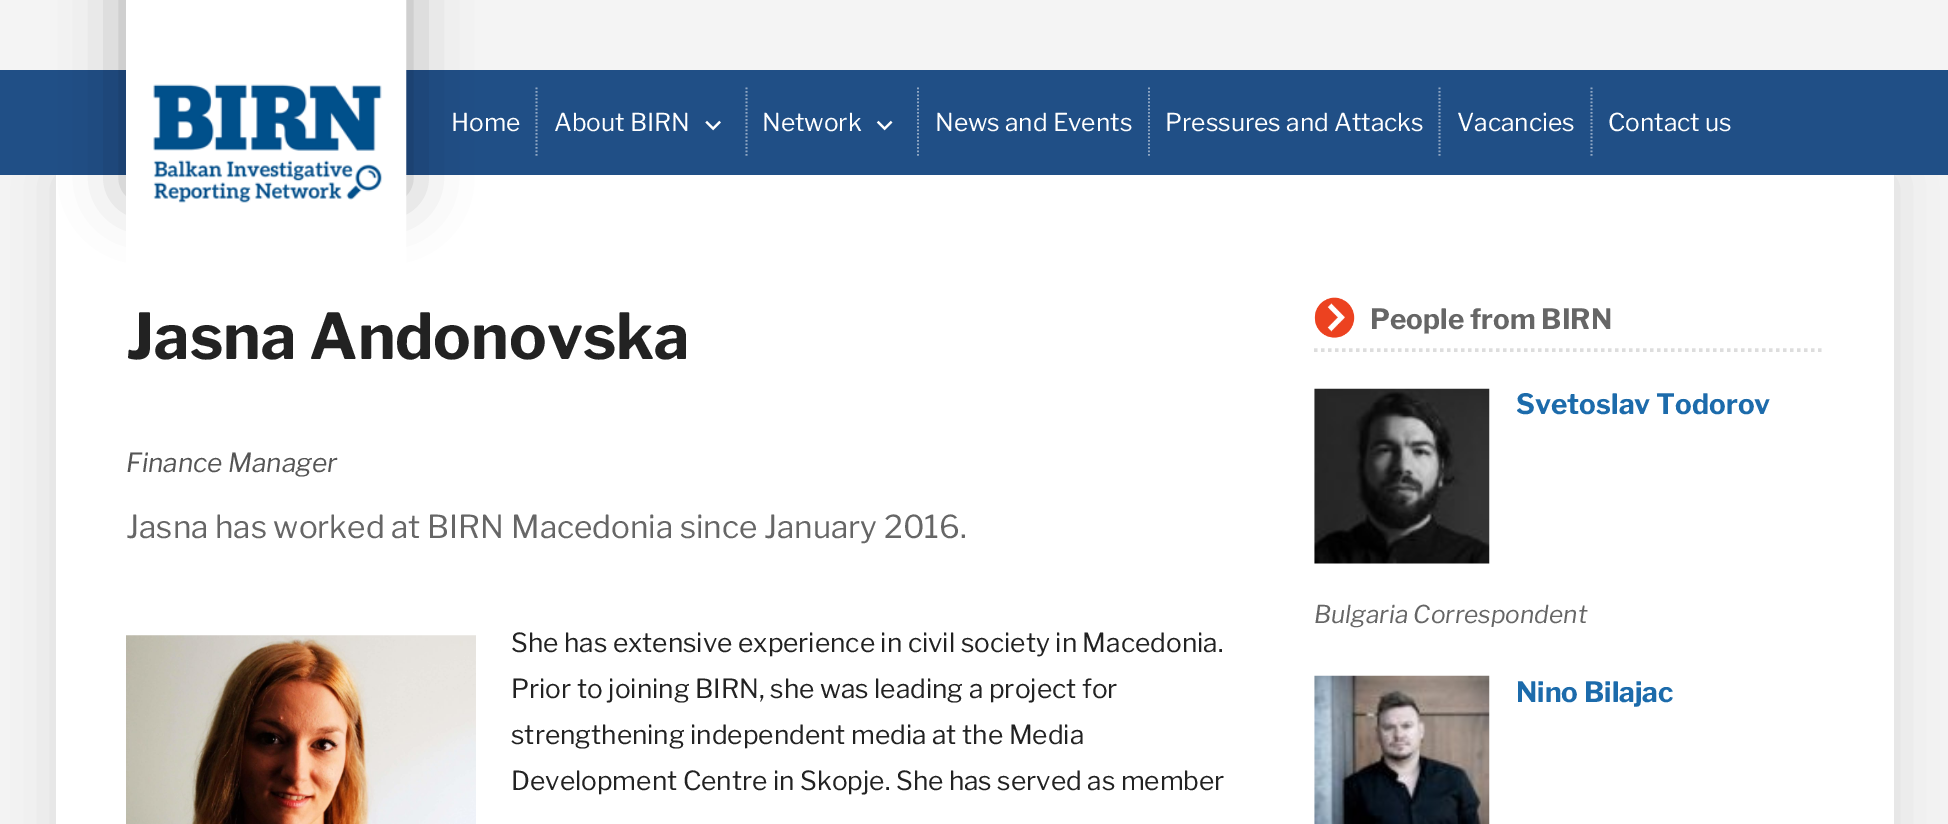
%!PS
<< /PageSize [1948 824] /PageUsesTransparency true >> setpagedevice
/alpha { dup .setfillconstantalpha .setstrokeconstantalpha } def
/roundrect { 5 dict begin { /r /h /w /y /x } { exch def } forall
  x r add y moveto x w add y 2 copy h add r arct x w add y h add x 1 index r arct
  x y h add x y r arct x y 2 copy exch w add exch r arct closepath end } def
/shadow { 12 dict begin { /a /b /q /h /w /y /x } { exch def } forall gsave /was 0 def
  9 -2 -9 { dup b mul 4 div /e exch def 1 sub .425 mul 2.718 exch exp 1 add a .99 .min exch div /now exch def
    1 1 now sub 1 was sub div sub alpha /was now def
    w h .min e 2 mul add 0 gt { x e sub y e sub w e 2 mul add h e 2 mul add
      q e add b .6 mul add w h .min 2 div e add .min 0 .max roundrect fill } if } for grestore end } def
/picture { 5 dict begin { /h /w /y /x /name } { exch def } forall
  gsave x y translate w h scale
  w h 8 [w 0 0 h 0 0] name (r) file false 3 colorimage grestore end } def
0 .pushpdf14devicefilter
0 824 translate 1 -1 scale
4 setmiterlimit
0.957 setgray
0 0 1948 824 rectfill
0 setgray
56 175 1838 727 0 26 0.1 shadow
0.125 0.31 0.525 setrgbcolor
0 70 1948 105 rectfill
1 setgray
56 175 1838 649 rectfill
gsave
newpath 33 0 moveto 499 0 lineto 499 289 lineto 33 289 lineto closepath 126 -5 moveto 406 -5 lineto 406 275 lineto 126 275 lineto closepath eoclip newpath
0 setgray
126 -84 280 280 0 30.5 0.3 shadow
grestore
(img1.rgb) 144 13 244 190 picture
18 setlinewidth
135 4 262 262 rectstroke
0.565 0.655 0.765 setrgbcolor
1.8 setlinewidth
[1.75 1.75] 0 setdash
newpath 536.5 87.5 moveto 536.5 157.5 lineto stroke
/LibreFranklin-Regular [24.5 0 0 -24.5 0 0] selectfont
1 setgray
451 131 moveto (Home) show
0.565 0.655 0.765 setrgbcolor
newpath 746.5 87.5 moveto 746.5 157.5 lineto stroke
1 setgray
554 131 moveto (About BIRN) show
(img2.rgb) 705 120 16 11 picture
0.565 0.655 0.765 setrgbcolor
newpath 918 87.5 moveto 918 157.5 lineto stroke
1 setgray
762 131 moveto (Network) show
(img3.rgb) 876 120 17 11 picture
0.565 0.655 0.765 setrgbcolor
newpath 1149 87.5 moveto 1149 157.5 lineto stroke
1 setgray
935 131 moveto (News and Events) show
0.565 0.655 0.765 setrgbcolor
newpath 1439.5 87.5 moveto 1439.5 157.5 lineto stroke
1 setgray
1165 131 moveto (Pressures and Attacks) show
0.565 0.655 0.765 setrgbcolor
newpath 1591.5 87.5 moveto 1591.5 157.5 lineto stroke
1 setgray
1457 131 moveto (Vacancies) show
1608 131 moveto (Contact us) show
/LibreFranklin-Bold [63 0 0 -63 0 0] selectfont
0.133 setgray
126 359 moveto (Jasna Andonovska) show
/LibreFranklin-Italic [26.25 0 0 -26.25 0 0] selectfont
0.333 setgray
126 472 moveto (Finance Manager) show
/LibreFranklin-Regular [31.5 0 0 -31.5 0 0] selectfont
0.4 setgray
126 538 moveto (Jasna has worked at BIRN Macedonia since January 2016.) show
(img4.rgb) 126 635 350 189 picture
/LibreFranklin-Regular [26.25 0 0 -26.25 0 0] selectfont
0.133 setgray
511 652 moveto (She has extensive experience in civil society in Macedonia.) show
511 698 moveto (Prior to joining BIRN, she was leading a project for) show
511 744 moveto (strengthening independent media at the Media) show
511 790 moveto (Development Centre in Skopje. She has served as member) show
(img5.rgb) 1314 297 41 41 picture
0.867 setgray
3.5 setlinewidth
[3.5 3.5] 0 setdash
newpath 1314 350 moveto 1823.5 350 lineto stroke
/LibreFranklin-Bold [28 0 0 -28 0 0] selectfont
0.4 setgray
1370 329 moveto (People from BIRN) show
(img6.rgb) 1314 388 176 176 picture
0.11 0.42 0.671 setrgbcolor
1516 414 moveto (Svetoslav Todorov) show
/LibreFranklin-Italic [24.5 0 0 -24.5 0 0] selectfont
0.4 setgray
1314 623 moveto (Bulgaria Correspondent) show
(img7.rgb) 1314 675 176 149 picture
/LibreFranklin-Bold [28 0 0 -28 0 0] selectfont
0.11 0.42 0.671 setrgbcolor
1516 702 moveto (Nino Bilajac) show
.poppdf14devicefilter showpage
